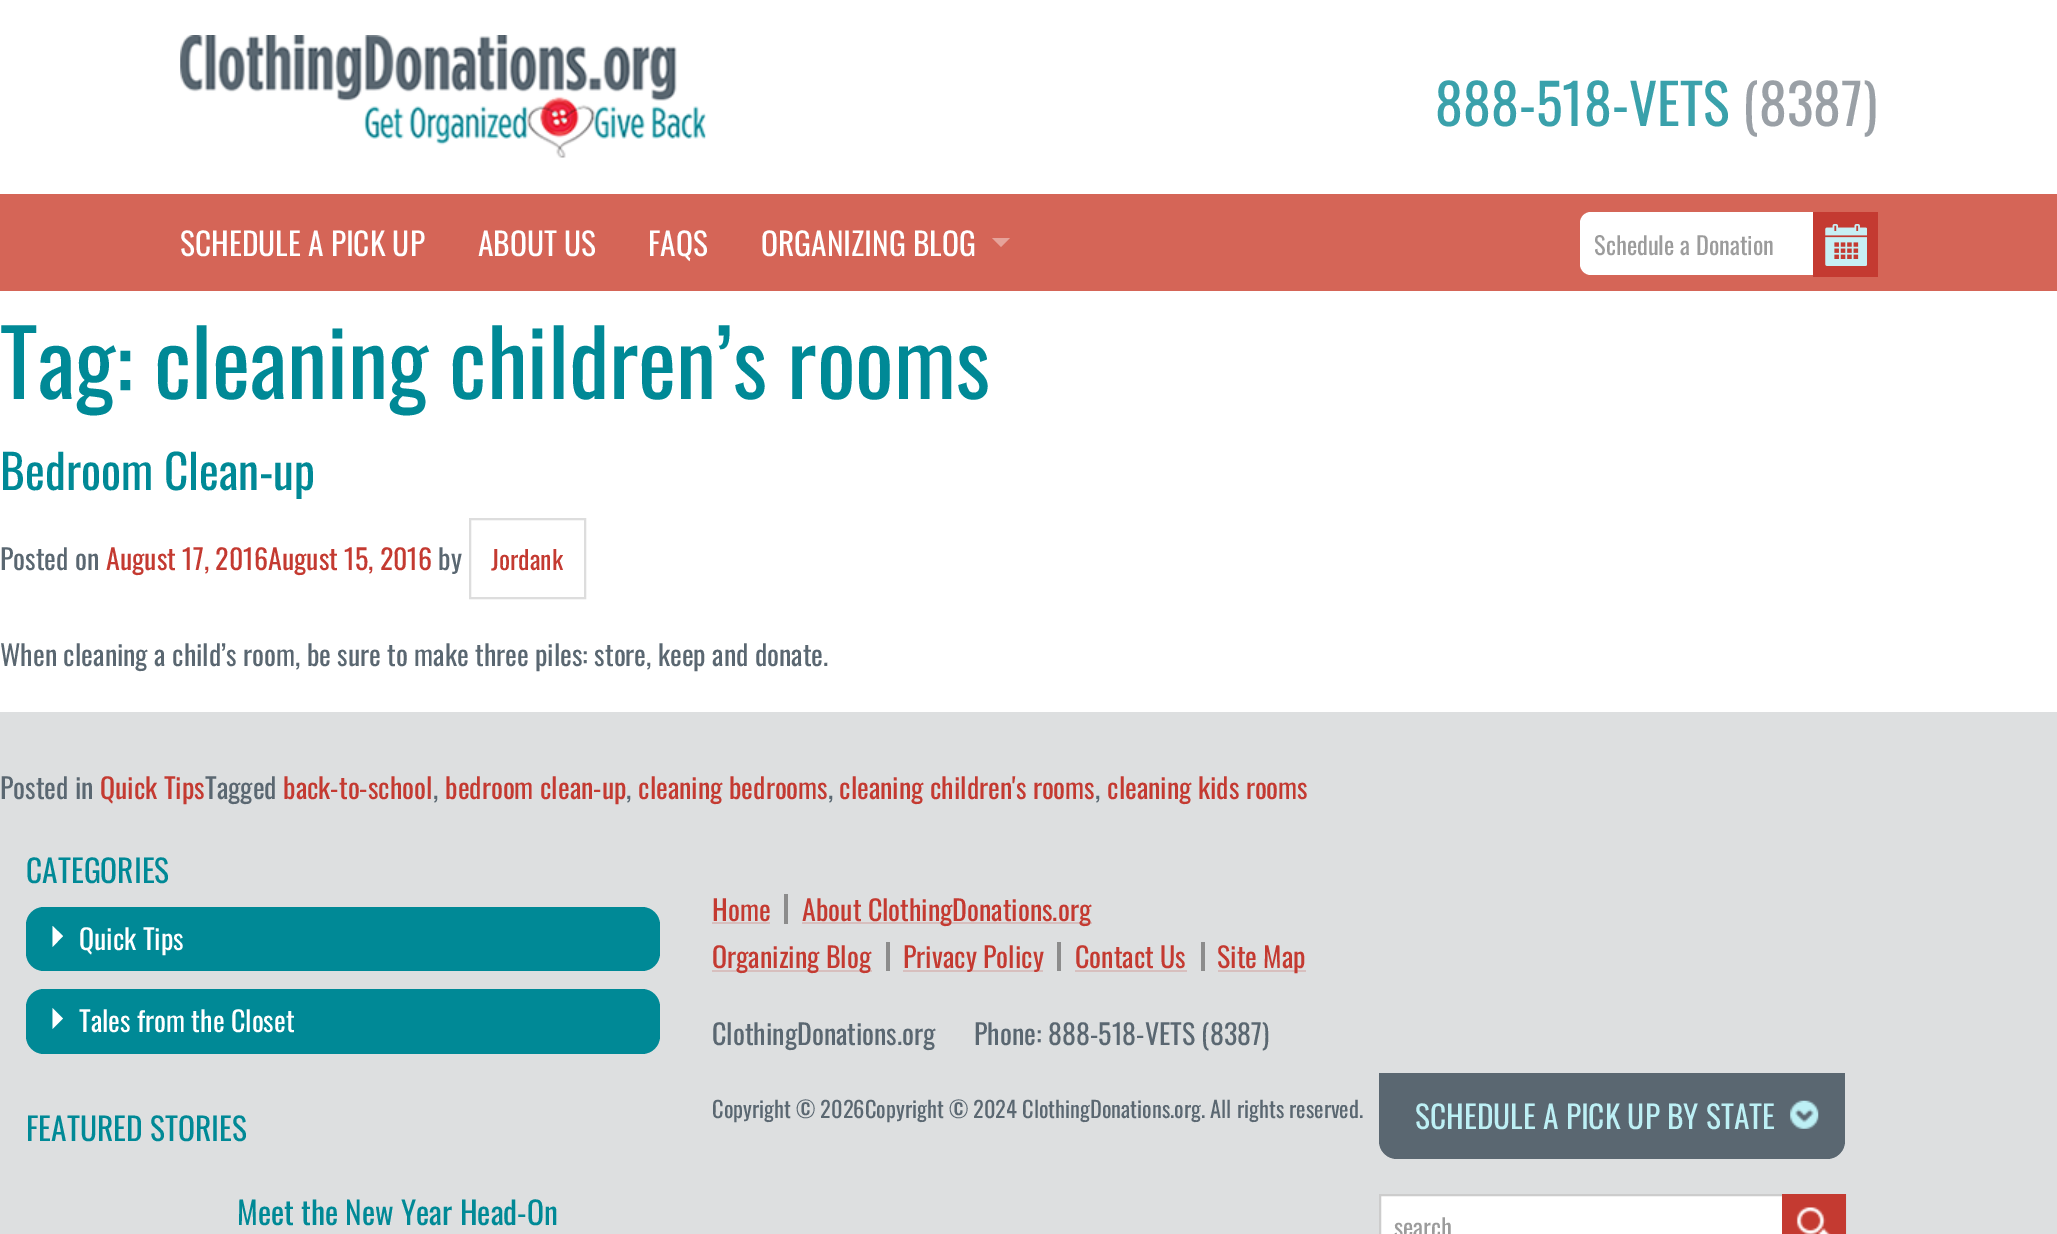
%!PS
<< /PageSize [2057 1234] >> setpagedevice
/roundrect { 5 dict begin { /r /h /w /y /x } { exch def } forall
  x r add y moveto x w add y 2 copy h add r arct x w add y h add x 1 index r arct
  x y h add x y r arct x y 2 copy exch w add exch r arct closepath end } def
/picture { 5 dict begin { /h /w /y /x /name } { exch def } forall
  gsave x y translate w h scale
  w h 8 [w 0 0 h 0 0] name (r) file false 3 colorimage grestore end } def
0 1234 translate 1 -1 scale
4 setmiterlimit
1 setgray
0 0 2057 1234 rectfill
(img1.rgb) 180 35 526 123 picture
/Oswald-Regular [56 0 0 -56 0 0] selectfont
0.227 0.631 0.671 setrgbcolor
1435 126 moveto (888-518-VETS) show
0.604 0.627 0.651 setrgbcolor
1742 126 moveto (\(8387\)) show
0.835 0.396 0.341 setrgbcolor
0 194 2057 97 rectfill
/Oswald-Regular [31.5 0 0 -31.5 0 0] selectfont
1 setgray
180 256 moveto (SCHEDULE A PICK UP) show
478 256 moveto (ABOUT US) show
648 256 moveto (FAQS) show
761 256 moveto (ORGANIZING BLOG) show
0.902 0.639 0.604 setrgbcolor
newpath 992 238 moveto 1010 238 lineto 1001 247 lineto closepath fill
1 setgray
1580 212 298 63 11 roundrect fill
/Oswald-Regular [24.5 0 0 -24.5 0 0] selectfont
0.612 setgray
1594 255 moveto (Schedule a Donation) show
0.769 0.227 0.192 setrgbcolor
1813 212 65 65 rectfill
(img2.rgb) 1825 224 42 42 picture
/Oswald-Regular [91 0 0 -91 0 0] selectfont
0 0.537 0.588 setrgbcolor
0 399 moveto (Tag: cleaning children’s rooms) show
/Oswald-Regular [47.25 0 0 -47.25 0 0] selectfont
0 490 moveto (Bedroom Clean-up) show
/Oswald-Regular [28 0 0 -28 0 0] selectfont
0.353 0.404 0.443 setrgbcolor
0 570 moveto (Posted on) show
0.769 0.227 0.192 setrgbcolor
106 570 moveto (August 17, 2016August 15, 2016) show
0.353 0.404 0.443 setrgbcolor
438 570 moveto (by) show
0.867 setgray
2 setlinewidth
470 519 115 79 rectstroke
/Oswald-Regular [26 0 0 -26 0 0] selectfont
0.769 0.227 0.192 setrgbcolor
491 570 moveto (Jordank) show
/Oswald-Regular [28 0 0 -28 0 0] selectfont
0.353 0.404 0.443 setrgbcolor
0 666 moveto (When cleaning a child’s room, be sure to make three piles: store, keep and donate.) show
0.867 0.875 0.878 setrgbcolor
0 712 2057 522 rectfill
0.353 0.404 0.443 setrgbcolor
0 799 moveto (Posted in) show
0.769 0.227 0.192 setrgbcolor
100 799 moveto (Quick Tips) show
0.353 0.404 0.443 setrgbcolor
205 799 moveto (Tagged) show
0.769 0.227 0.192 setrgbcolor
283 799 moveto (back-to-school) show
0.353 0.404 0.443 setrgbcolor
433 799 moveto (,) show
0.769 0.227 0.192 setrgbcolor
445 799 moveto (bedroom clean-up) show
0.353 0.404 0.443 setrgbcolor
626 799 moveto (,) show
0.769 0.227 0.192 setrgbcolor
638 799 moveto (cleaning bedrooms) show
0.353 0.404 0.443 setrgbcolor
828 799 moveto (,) show
0.769 0.227 0.192 setrgbcolor
839 799 moveto (cleaning children's rooms) show
0.353 0.404 0.443 setrgbcolor
1095 799 moveto (,) show
0.769 0.227 0.192 setrgbcolor
1107 799 moveto (cleaning kids rooms) show
/Oswald-Regular [31.5 0 0 -31.5 0 0] selectfont
0 0.537 0.588 setrgbcolor
26 883 moveto (CATEGORIES) show
26 907 634 64 18 roundrect fill
1 setgray
newpath 52.5 947 moveto 52.5 926 lineto 63 936 lineto closepath fill
/Oswald-Regular [28 0 0 -28 0 0] selectfont
79 950 moveto (Quick Tips) show
0 0.537 0.588 setrgbcolor
26 989 634 65 18 roundrect fill
1 setgray
newpath 52.5 1029 moveto 52.5 1008 lineto 63 1018.5 lineto closepath fill
79 1032 moveto (Tales from the Closet) show
/Oswald-Regular [31.5 0 0 -31.5 0 0] selectfont
0 0.537 0.588 setrgbcolor
26 1141 moveto (FEATURED STORIES) show
237 1225 moveto (Meet the New Year Head-On) show
0.549 setgray
784 894 4 30 rectfill
0.843 0.749 0.745 setrgbcolor
712 922 58 2 rectfill
/Oswald-Regular [28 0 0 -28 0 0] selectfont
0.769 0.227 0.192 setrgbcolor
712 921 moveto (Home) show
0.843 0.749 0.745 setrgbcolor
802 922 290 2 rectfill
0.769 0.227 0.192 setrgbcolor
802 921 moveto (About ClothingDonations.org) show
0.549 setgray
886 942 4 29 rectfill
0.843 0.749 0.745 setrgbcolor
712 970 160 2 rectfill
0.769 0.227 0.192 setrgbcolor
712 968 moveto (Organizing Blog) show
0.549 setgray
1057 942 4 29 rectfill
0.843 0.749 0.745 setrgbcolor
903 970 140 2 rectfill
0.769 0.227 0.192 setrgbcolor
903 968 moveto (Privacy Policy) show
0.549 setgray
1201 942 4 29 rectfill
0.843 0.749 0.745 setrgbcolor
1075 970 112 2 rectfill
0.769 0.227 0.192 setrgbcolor
1075 968 moveto (Contact Us) show
0.843 0.749 0.745 setrgbcolor
1218 970 88 2 rectfill
0.769 0.227 0.192 setrgbcolor
1217 968 moveto (Site Map) show
0.353 0.404 0.443 setrgbcolor
712 1045 moveto (ClothingDonations.org) show
974 1045 moveto (Phone: 888-518-VETS \(8387\)) show
/Oswald-Regular [22.4 0 0 -22.4 0 0] selectfont
712 1118 moveto (Copyright © 2026Copyright © 2024 ClothingDonations.org. All rights reserved.) show
newpath 1379 1073 moveto 1845 1073 lineto 1845 1141 lineto 1845 1151 1837 1159 1827 1159 curveto 1397 1159 lineto 1387 1159 1379 1151 1379 1141 curveto closepath fill
/Oswald-Regular [31.5 0 0 -31.5 0 0] selectfont
0.741 0.941 0.961 setrgbcolor
1415 1129 moveto (SCHEDULE A PICK UP BY STATE) show
(img3.rgb) 1790 1100 29 29 picture
1 setgray
1381 1196 401 38 rectfill
0.8 setgray
1380 1195 465 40 rectstroke
/Oswald-Regular [24.5 0 0 -24.5 0 0] selectfont
0.612 setgray
1394 1237 moveto (search) show
0.769 0.227 0.192 setrgbcolor
1782 1194 64 40 rectfill
(img4.rgb) 1796 1207 35 27 picture
showpage
